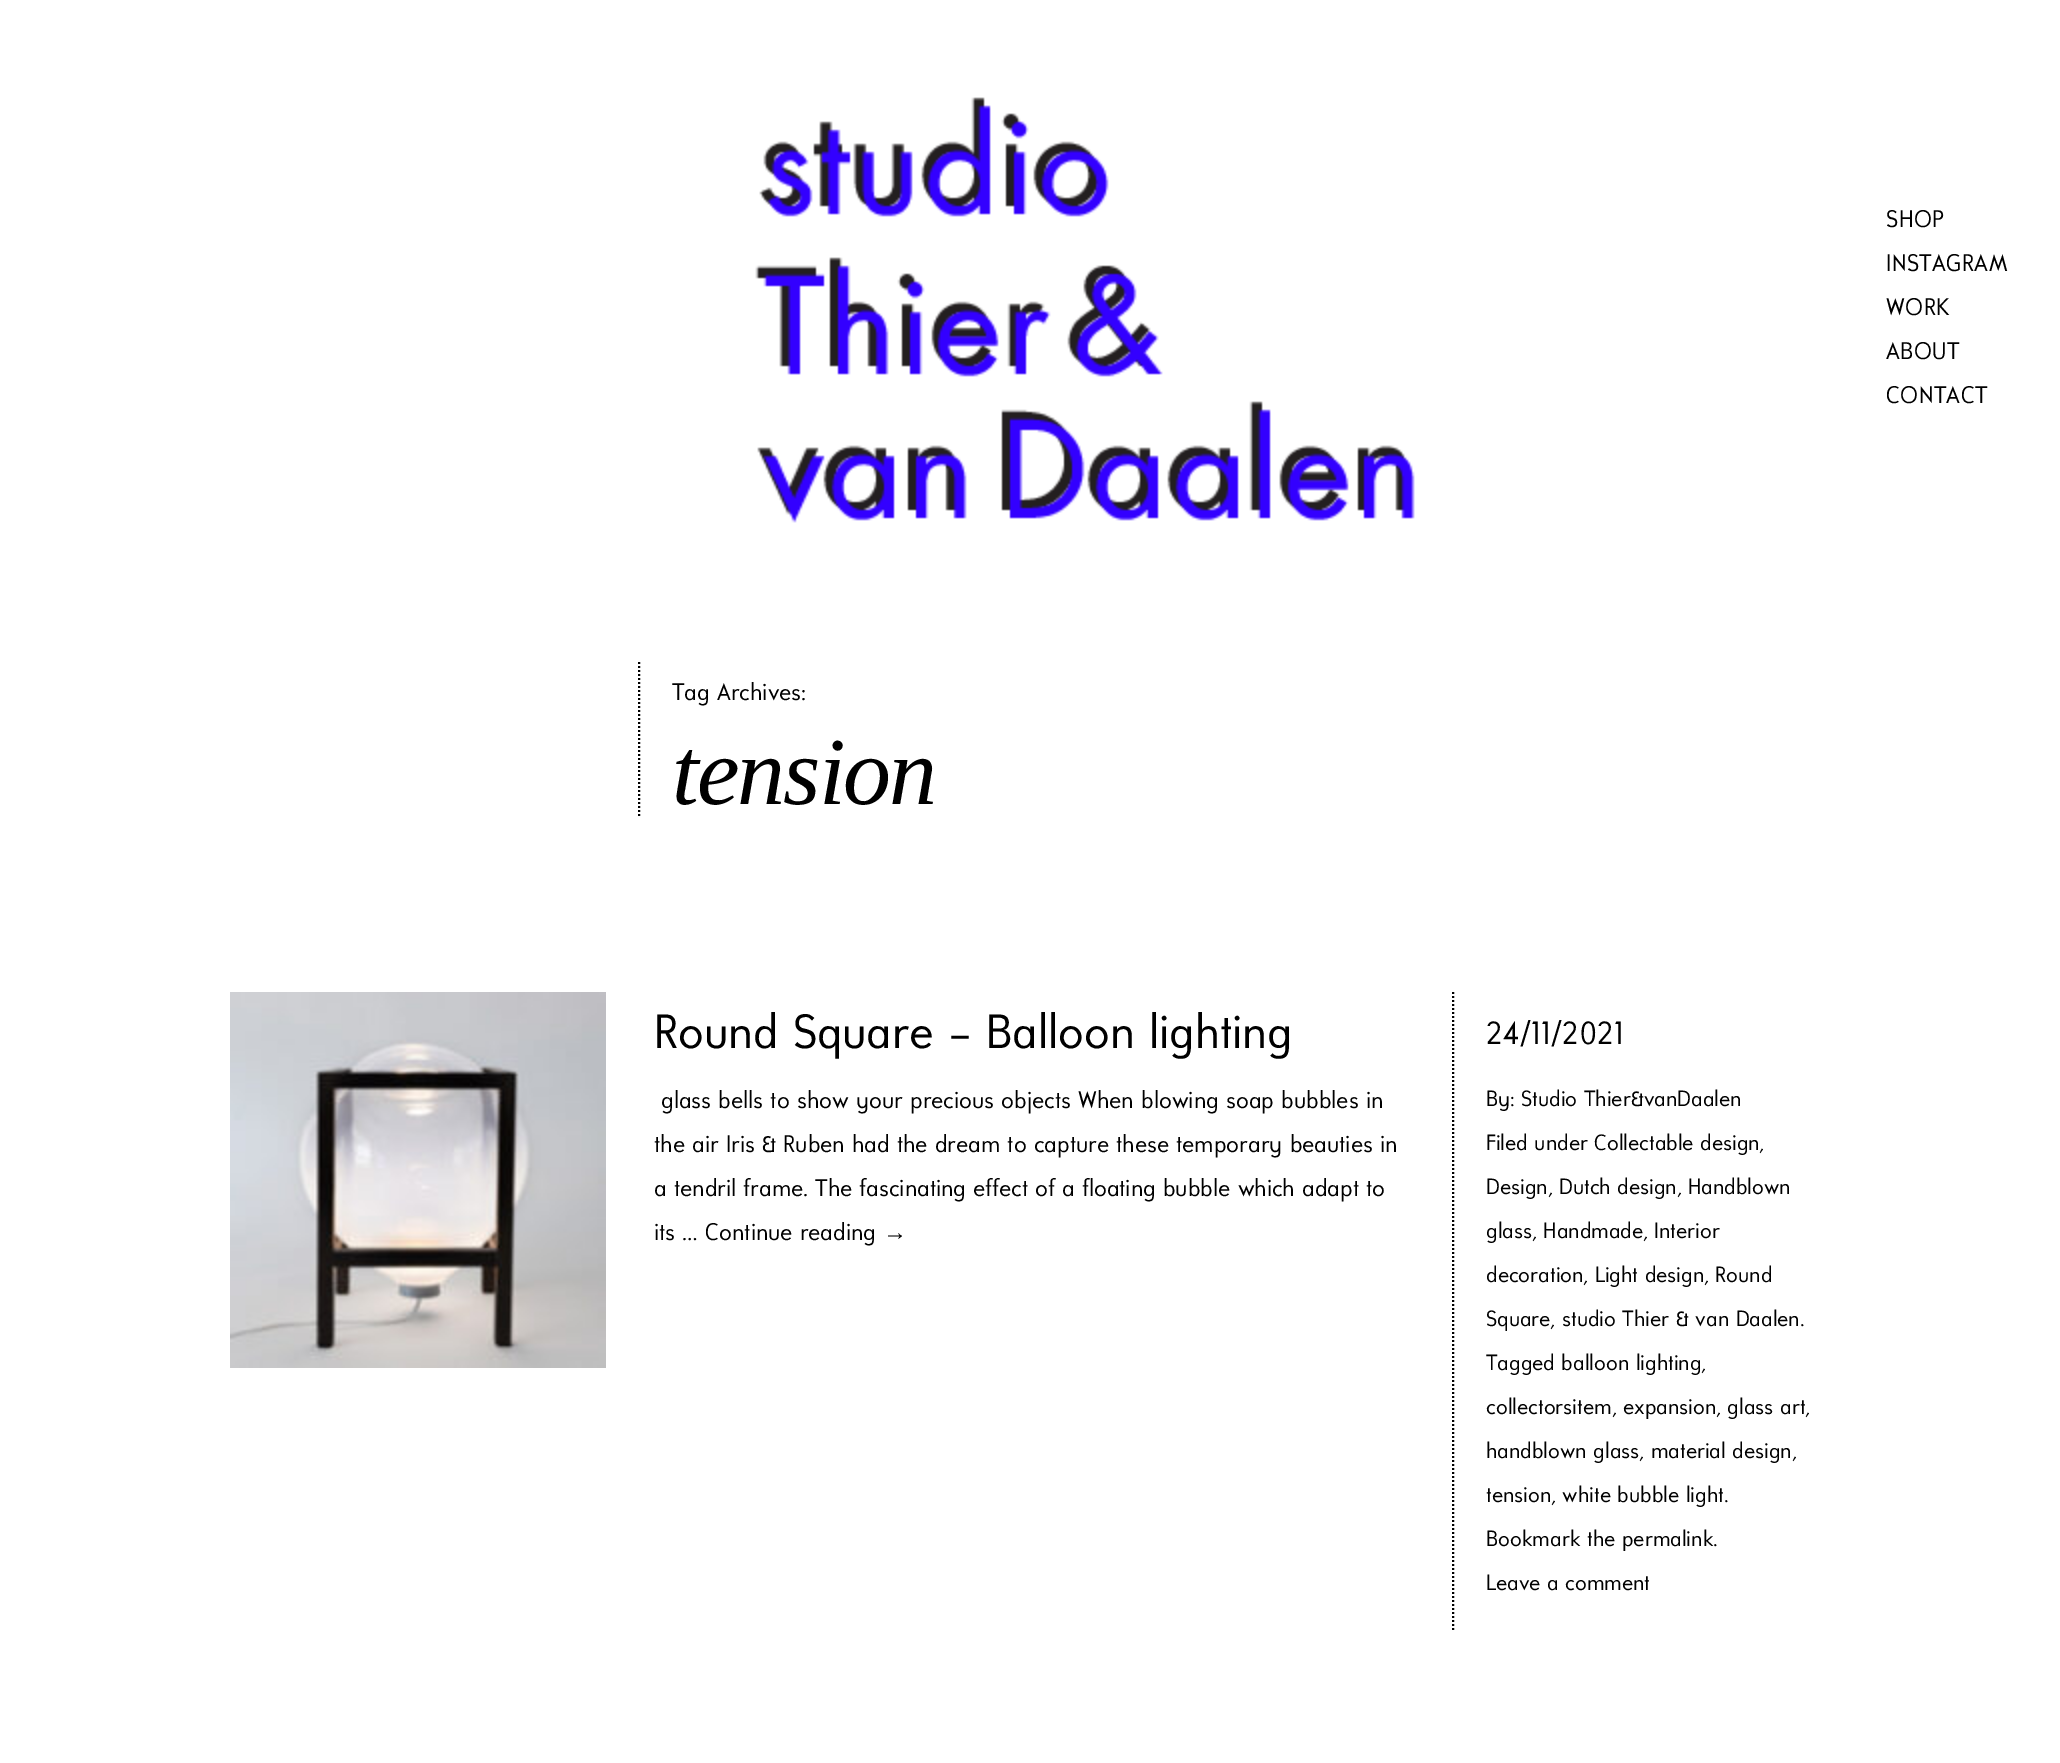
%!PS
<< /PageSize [2060 1763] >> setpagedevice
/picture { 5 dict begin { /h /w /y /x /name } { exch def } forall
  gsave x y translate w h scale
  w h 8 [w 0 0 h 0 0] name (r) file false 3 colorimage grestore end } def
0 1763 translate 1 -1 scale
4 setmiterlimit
1 setgray
0 0 2060 1763 rectfill
(img1.rgb) 755 97 660 426 picture
/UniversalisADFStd-Regular [24 0 0 -24 0 0] selectfont
0 setgray
1886 227 moveto 0.5 0 (SHOP) ashow
1886 271 moveto 0.5 0 (INSTAGRAM) ashow
1886 315 moveto 0.5 0 (WORK) ashow
1886 359 moveto 0.5 0 (ABOUT) ashow
1886 403 moveto 0.5 0 (CONTACT) ashow
2 setlinewidth
[2 2] 0 setdash
newpath 639 662 moveto 639 816 lineto stroke
672 700 moveto (Tag Archives:) show
/LiberationSerif-Italic [96 0 0 -96 0 0] selectfont
672 804 moveto -2 0 (tension) ashow
(img2.rgb) 230 992 376 376 picture
newpath 1453 992 moveto 1453 1080 lineto stroke
/UniversalisADFStd-Regular [48 0 0 -48 0 0] selectfont
654 1048 moveto (Round Square – Balloon lighting) show
/UniversalisADFStd-Regular [32 0 0 -32 0 0] selectfont
1486 1044 moveto (24/11/2021) show
/UniversalisADFStd-Regular [24 0 0 -24 0 0] selectfont
661 1108 moveto (glass bells to show your precious objects When blowing soap bubbles in) show
654 1152 moveto (the air Iris & Ruben had the dream to capture these temporary beauties in) show
654 1196 moveto (a tendril frame. The fascinating effect of a floating bubble which adapt to) show
654 1240 moveto (its … Continue reading) show
/LiberationSerif-Regular [24 0 0 -24 0 0] selectfont
883 1240 moveto (→) show
newpath 1453 1080 moveto 1453 1630 lineto stroke
/UniversalisADFStd-Regular [22 0 0 -22 0 0] selectfont
1486 1106 moveto (By: Studio Thier&vanDaalen) show
1486 1150 moveto (Filed under Collectable design,) show
1486 1194 moveto (Design, Dutch design, Handblown) show
1486 1238 moveto (glass, Handmade, Interior) show
1486 1282 moveto (decoration, Light design, Round) show
1486 1326 moveto (Square, studio Thier & van Daalen.) show
1486 1370 moveto (Tagged balloon lighting,) show
1486 1414 moveto (collectorsitem, expansion, glass art,) show
1486 1458 moveto (handblown glass, material design,) show
1486 1502 moveto (tension, white bubble light.) show
1486 1546 moveto (Bookmark the permalink.) show
1486 1590 moveto (Leave a comment) show
showpage
